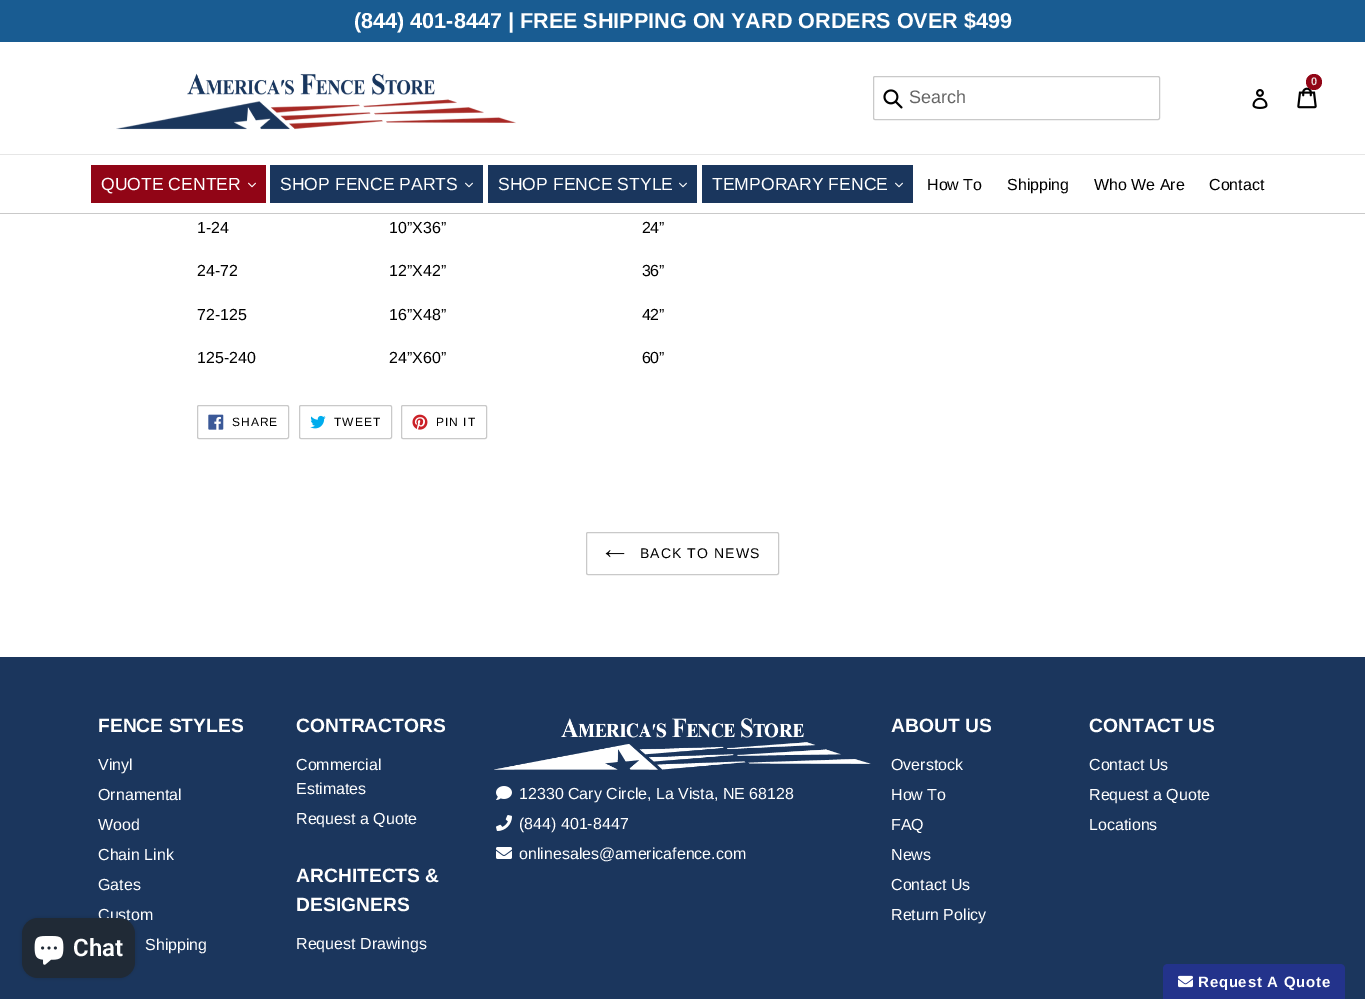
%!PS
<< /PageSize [1365 999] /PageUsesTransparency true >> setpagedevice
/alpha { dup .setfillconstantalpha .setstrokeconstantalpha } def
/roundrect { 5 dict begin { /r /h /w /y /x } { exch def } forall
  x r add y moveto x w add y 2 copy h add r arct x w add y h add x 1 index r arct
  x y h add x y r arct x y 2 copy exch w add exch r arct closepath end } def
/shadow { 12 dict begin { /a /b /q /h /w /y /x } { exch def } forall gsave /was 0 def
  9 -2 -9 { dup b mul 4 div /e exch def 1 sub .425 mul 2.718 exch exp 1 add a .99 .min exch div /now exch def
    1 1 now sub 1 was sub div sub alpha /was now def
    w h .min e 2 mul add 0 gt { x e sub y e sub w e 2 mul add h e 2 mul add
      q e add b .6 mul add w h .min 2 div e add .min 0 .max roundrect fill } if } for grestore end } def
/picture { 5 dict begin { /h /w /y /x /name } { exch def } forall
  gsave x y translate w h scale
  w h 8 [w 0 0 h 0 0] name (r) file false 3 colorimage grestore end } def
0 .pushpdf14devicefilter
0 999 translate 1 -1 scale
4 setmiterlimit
1 setgray
0 0 1365 999 rectfill
0.098 0.361 0.573 setrgbcolor
0 0 1365 42 rectfill
/LiberationSans-Bold [21.6 0 0 -21.6 0 0] selectfont
1 setgray
354 28 moveto (\(844\) 401-8447 | FREE SHIPPING ON YARD ORDERS OVER $499) show
0.902 setgray
0 154 1365 1 rectfill
(img1.rgb) 116 73 400 57 picture
(img2.rgb) 1297 87 20 22 picture
0.569 0.02 0.086 setrgbcolor
newpath 1314 82 8 0 360 arc closepath fill
/LiberationSans-Bold [11 0 0 -11 0 0] selectfont
0.902 0.831 0.831 setrgbcolor
1311 85 moveto (0) show
(img3.rgb) 1252 89 16 20 picture
0.788 setgray
873.5 76.5 286 43 1.5 roundrect stroke
(img4.rgb) 883 89 20 20 picture
/LiberationSans-Regular [18 0 0 -18 0 0] selectfont
0.4 setgray
909 103 moveto (Search) show
0.788 setgray
0 213 1365 1 rectfill
0.569 0.02 0.086 setrgbcolor
91 165 175 38 rectfill
/LiberationSans-Regular [17.6 0 0 -17.6 0 0] selectfont
1 setgray
101 190 moveto (QUOTE CENTER) show
(img5.rgb) 248 182 8 6 picture
0.102 0.212 0.365 setrgbcolor
270 165 213 38 rectfill
1 setgray
280 190 moveto (SHOP FENCE PARTS) show
(img6.rgb) 465 182 8 6 picture
0.102 0.212 0.365 setrgbcolor
488 165 209 38 rectfill
1 setgray
498 190 moveto (SHOP FENCE STYLE) show
(img6.rgb) 679 182 8 6 picture
0.102 0.212 0.365 setrgbcolor
702 165 211 38 rectfill
1 setgray
712 190 moveto (TEMPORARY FENCE) show
(img6.rgb) 895 182 8 6 picture
/LiberationSans-Regular [16 0 0 -16 0 0] selectfont
0 setgray
927 190 moveto (How To) show
1007 190 moveto (Shipping) show
1094 190 moveto (Who We Are) show
1209 190 moveto (Contact) show
197 233 moveto (1-24                                    10”X36”                                            24”) show
197 276 moveto (24-72                                  12”X42”                                            36”) show
197 320 moveto (72-125                                16”X48”                                            42”) show
197 363 moveto (125-240                              24”X60”                                            60”) show
0.788 setgray
197.5 405.5 91 33 1.5 roundrect stroke
(img7.rgb) 208 414 16 16 picture
/LiberationSans-Regular [12 0 0 -12 0 0] selectfont
0 setgray
232 426 moveto 1 0 (SHARE) ashow
0.788 setgray
299.5 405.5 92 33 1.5 roundrect stroke
(img8.rgb) 310 415 16 14 picture
0 setgray
334 426 moveto 1 0 (TWEET) ashow
0.788 setgray
401.5 405.5 85 33 1.5 roundrect stroke
(img9.rgb) 412 414 16 16 picture
0 setgray
436 426 moveto 1 0 (PIN IT) ashow
0.788 setgray
586.5 532.5 192 42 1.5 roundrect stroke
(img10.rgb) 605 550 20 8 picture
/LiberationSans-Regular [14 0 0 -14 0 0] selectfont
0 setgray
640 558 moveto 1.1 0 (BACK TO NEWS) ashow
0.106 0.212 0.365 setrgbcolor
0 657 1365 342 rectfill
/LiberationSans-Bold [19.25 0 0 -19.25 0 0] selectfont
1 setgray
98 732 moveto (FENCE STYLES) show
/LiberationSans-Regular [16 0 0 -16 0 0] selectfont
98 770 moveto (Vinyl) show
98 800 moveto (Ornamental) show
98 830 moveto (Wood) show
98 860 moveto (Chain Link) show
98 890 moveto (Gates) show
98 920 moveto (Custom) show
145 950 moveto (Shipping) show
/LiberationSans-Bold [19.25 0 0 -19.25 0 0] selectfont
296 732 moveto (CONTRACTORS) show
/LiberationSans-Regular [16 0 0 -16 0 0] selectfont
296 770 moveto (Commercial) show
296 794 moveto (Estimates) show
296 824 moveto (Request a Quote) show
/LiberationSans-Bold [19.25 0 0 -19.25 0 0] selectfont
296 882 moveto (ARCHITECTS &) show
296 911 moveto (DESIGNERS) show
/LiberationSans-Regular [16 0 0 -16 0 0] selectfont
296 949 moveto (Request Drawings) show
(img11.rgb) 494 718 377 52 picture
(img12.rgb) 496 786 16 14 picture
519 799 moveto (12330 Cary Circle, La Vista, NE 68128) show
(img13.rgb) 496 815 16 16 picture
519 829 moveto (\(844\) 401-8447) show
(img14.rgb) 496 847 16 12 picture
519 859 moveto (onlinesales@americafence.com) show
/LiberationSans-Bold [19.25 0 0 -19.25 0 0] selectfont
891 732 moveto (ABOUT US) show
/LiberationSans-Regular [16 0 0 -16 0 0] selectfont
891 770 moveto (Overstock) show
891 800 moveto (How To) show
891 830 moveto (FAQ) show
891 860 moveto (News) show
891 890 moveto (Contact Us) show
891 920 moveto (Return Policy) show
/LiberationSans-Bold [19.25 0 0 -19.25 0 0] selectfont
1089 732 moveto (CONTACT US) show
/LiberationSans-Regular [16 0 0 -16 0 0] selectfont
1089 770 moveto (Contact Us) show
1089 800 moveto (Request a Quote) show
1089 830 moveto (Locations) show
0 setgray
22 918 113 60 16 2.5 0.15 shadow
0.125 0.165 0.212 setrgbcolor
22 918 113 60 16 roundrect fill
(img15.rgb) 34 936 30 29 picture
/Roboto-SemiBold [24 0 0 -24 0 0] selectfont
1 setgray
73 956 moveto (Chat) show
0.137 0.2 0.545 setrgbcolor
newpath 1168 964 moveto 1340 964 lineto 1343 964 1345 966 1345 969 curveto 1345 999 lineto 1163 999 lineto 1163 969 lineto 1163 966 1165 964 1168 964 curveto closepath fill
(img16.rgb) 1178 975 15 13 picture
/LiberationSans-Bold [15 0 0 -15 0 0] selectfont
1 setgray
1198 987 moveto 0.75 0 (Request A Quote) ashow
.poppdf14devicefilter showpage
